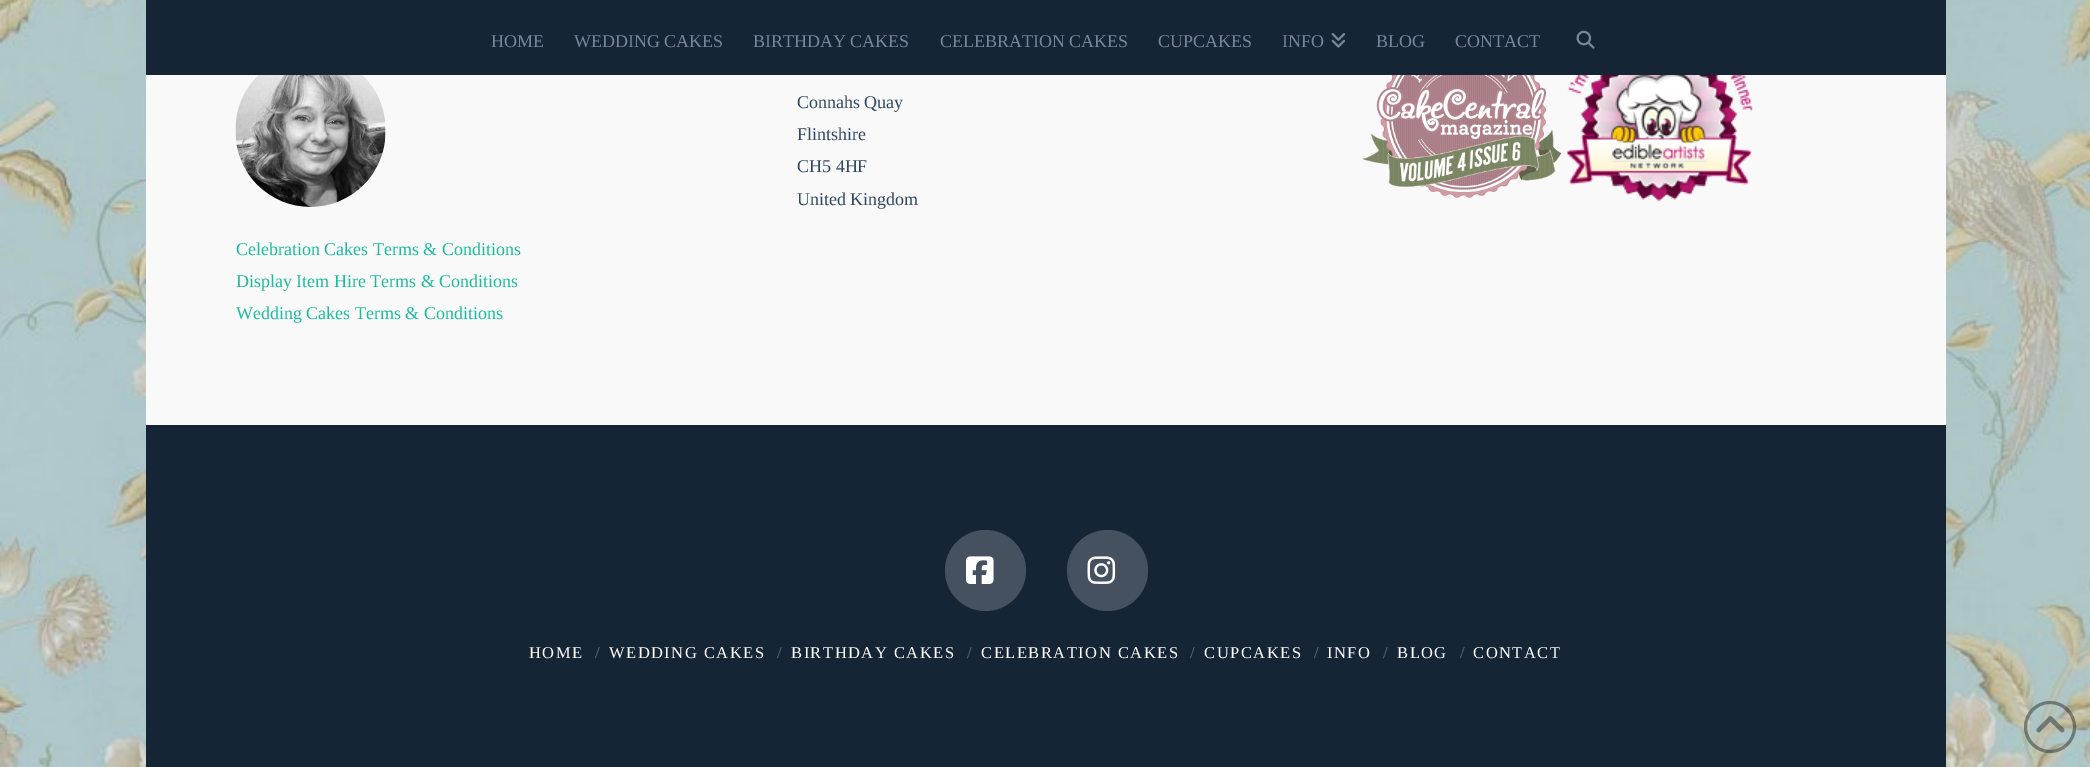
%!PS
<< /PageSize [2090 767] /PageUsesTransparency true >> setpagedevice
/alpha { dup .setfillconstantalpha .setstrokeconstantalpha } def
/picture { 5 dict begin { /h /w /y /x /name } { exch def } forall
  gsave x y translate w h scale
  w h 8 [w 0 0 h 0 0] name (r) file false 3 colorimage grestore end } def
0 .pushpdf14devicefilter
0 767 translate 1 -1 scale
4 setmiterlimit
1 setgray
0 0 2090 767 rectfill
(img1.rgb) 0 0 2090 767 picture
0.086 0.145 0.212 setrgbcolor
146 0 1800 75 rectfill
/LiberationSerif-Regular [18 0 0 -18 0 0] selectfont
0.467 0.525 0.624 setrgbcolor
491 47 moveto (HOME) show
574 47 moveto (WEDDING CAKES) show
753 47 moveto (BIRTHDAY CAKES) show
940 47 moveto (CELEBRATION CAKES) show
1158 47 moveto (CUPCAKES) show
1282 47 moveto (INFO) show
(img2.rgb) 1331 33 15 15 picture
1376 47 moveto (BLOG) show
1455 47 moveto (CONTACT) show
(img3.rgb) 1576 30 19 19 picture
0.976 setgray
146 75 1800 350 rectfill
0.188 0.275 0.376 setrgbcolor
797 108 moveto (Connahs Quay) show
797 140 moveto (Flintshire) show
797 172 moveto (CH5 4HF) show
797 205 moveto (United Kingdom) show
(img4.rgb) 1362 75 200 123 picture
(img5.rgb) 1566 75 187 127 picture
(img6.rgb) 235 75 151 132 picture
0.102 0.737 0.612 setrgbcolor
236 255 moveto (Celebration Cakes Terms & Conditions) show
236 287 moveto (Display Item Hire Terms & Conditions) show
236 319 moveto (Wedding Cakes Terms & Conditions) show
0.086 0.145 0.212 setrgbcolor
146 425 1800 342 rectfill
0.271 0.318 0.369 setrgbcolor
newpath 985.5 570.5 40.5 0 360 arc closepath fill
(img7.rgb) 966 556 28 28 picture
newpath 1107.5 570.5 40.5 0 360 arc closepath fill
(img8.rgb) 1087 556 29 28 picture
/LiberationSerif-Regular [16.5 0 0 -16.5 0 0] selectfont
1 setgray
529 658 moveto 1.5 0 (HOME) ashow
0.408 0.443 0.486 setrgbcolor
595 658 moveto (/) show
1 setgray
609 658 moveto 1.5 0 (WEDDING CAKES) ashow
0.408 0.443 0.486 setrgbcolor
777 658 moveto (/) show
1 setgray
791 658 moveto 1.5 0 (BIRTHDAY CAKES) ashow
0.408 0.443 0.486 setrgbcolor
967 658 moveto (/) show
1 setgray
981 658 moveto 1.5 0 (CELEBRATION CAKES) ashow
0.408 0.443 0.486 setrgbcolor
1190 658 moveto (/) show
1 setgray
1204 658 moveto 1.5 0 (CUPCAKES) ashow
0.408 0.443 0.486 setrgbcolor
1314 658 moveto (/) show
1 setgray
1327 658 moveto 1.5 0 (INFO) ashow
0.408 0.443 0.486 setrgbcolor
1383 658 moveto (/) show
1 setgray
1397 658 moveto 1.5 0 (BLOG) ashow
0.408 0.443 0.486 setrgbcolor
1460 658 moveto (/) show
1 setgray
1473 658 moveto 1.5 0 (CONTACT) ashow
0.38 alpha
0 setgray
3 setlinewidth
newpath 2050 727 24.5 0 360 arc closepath stroke
1 alpha
(img9.rgb) 2036 716 29 17 picture
.poppdf14devicefilter showpage
